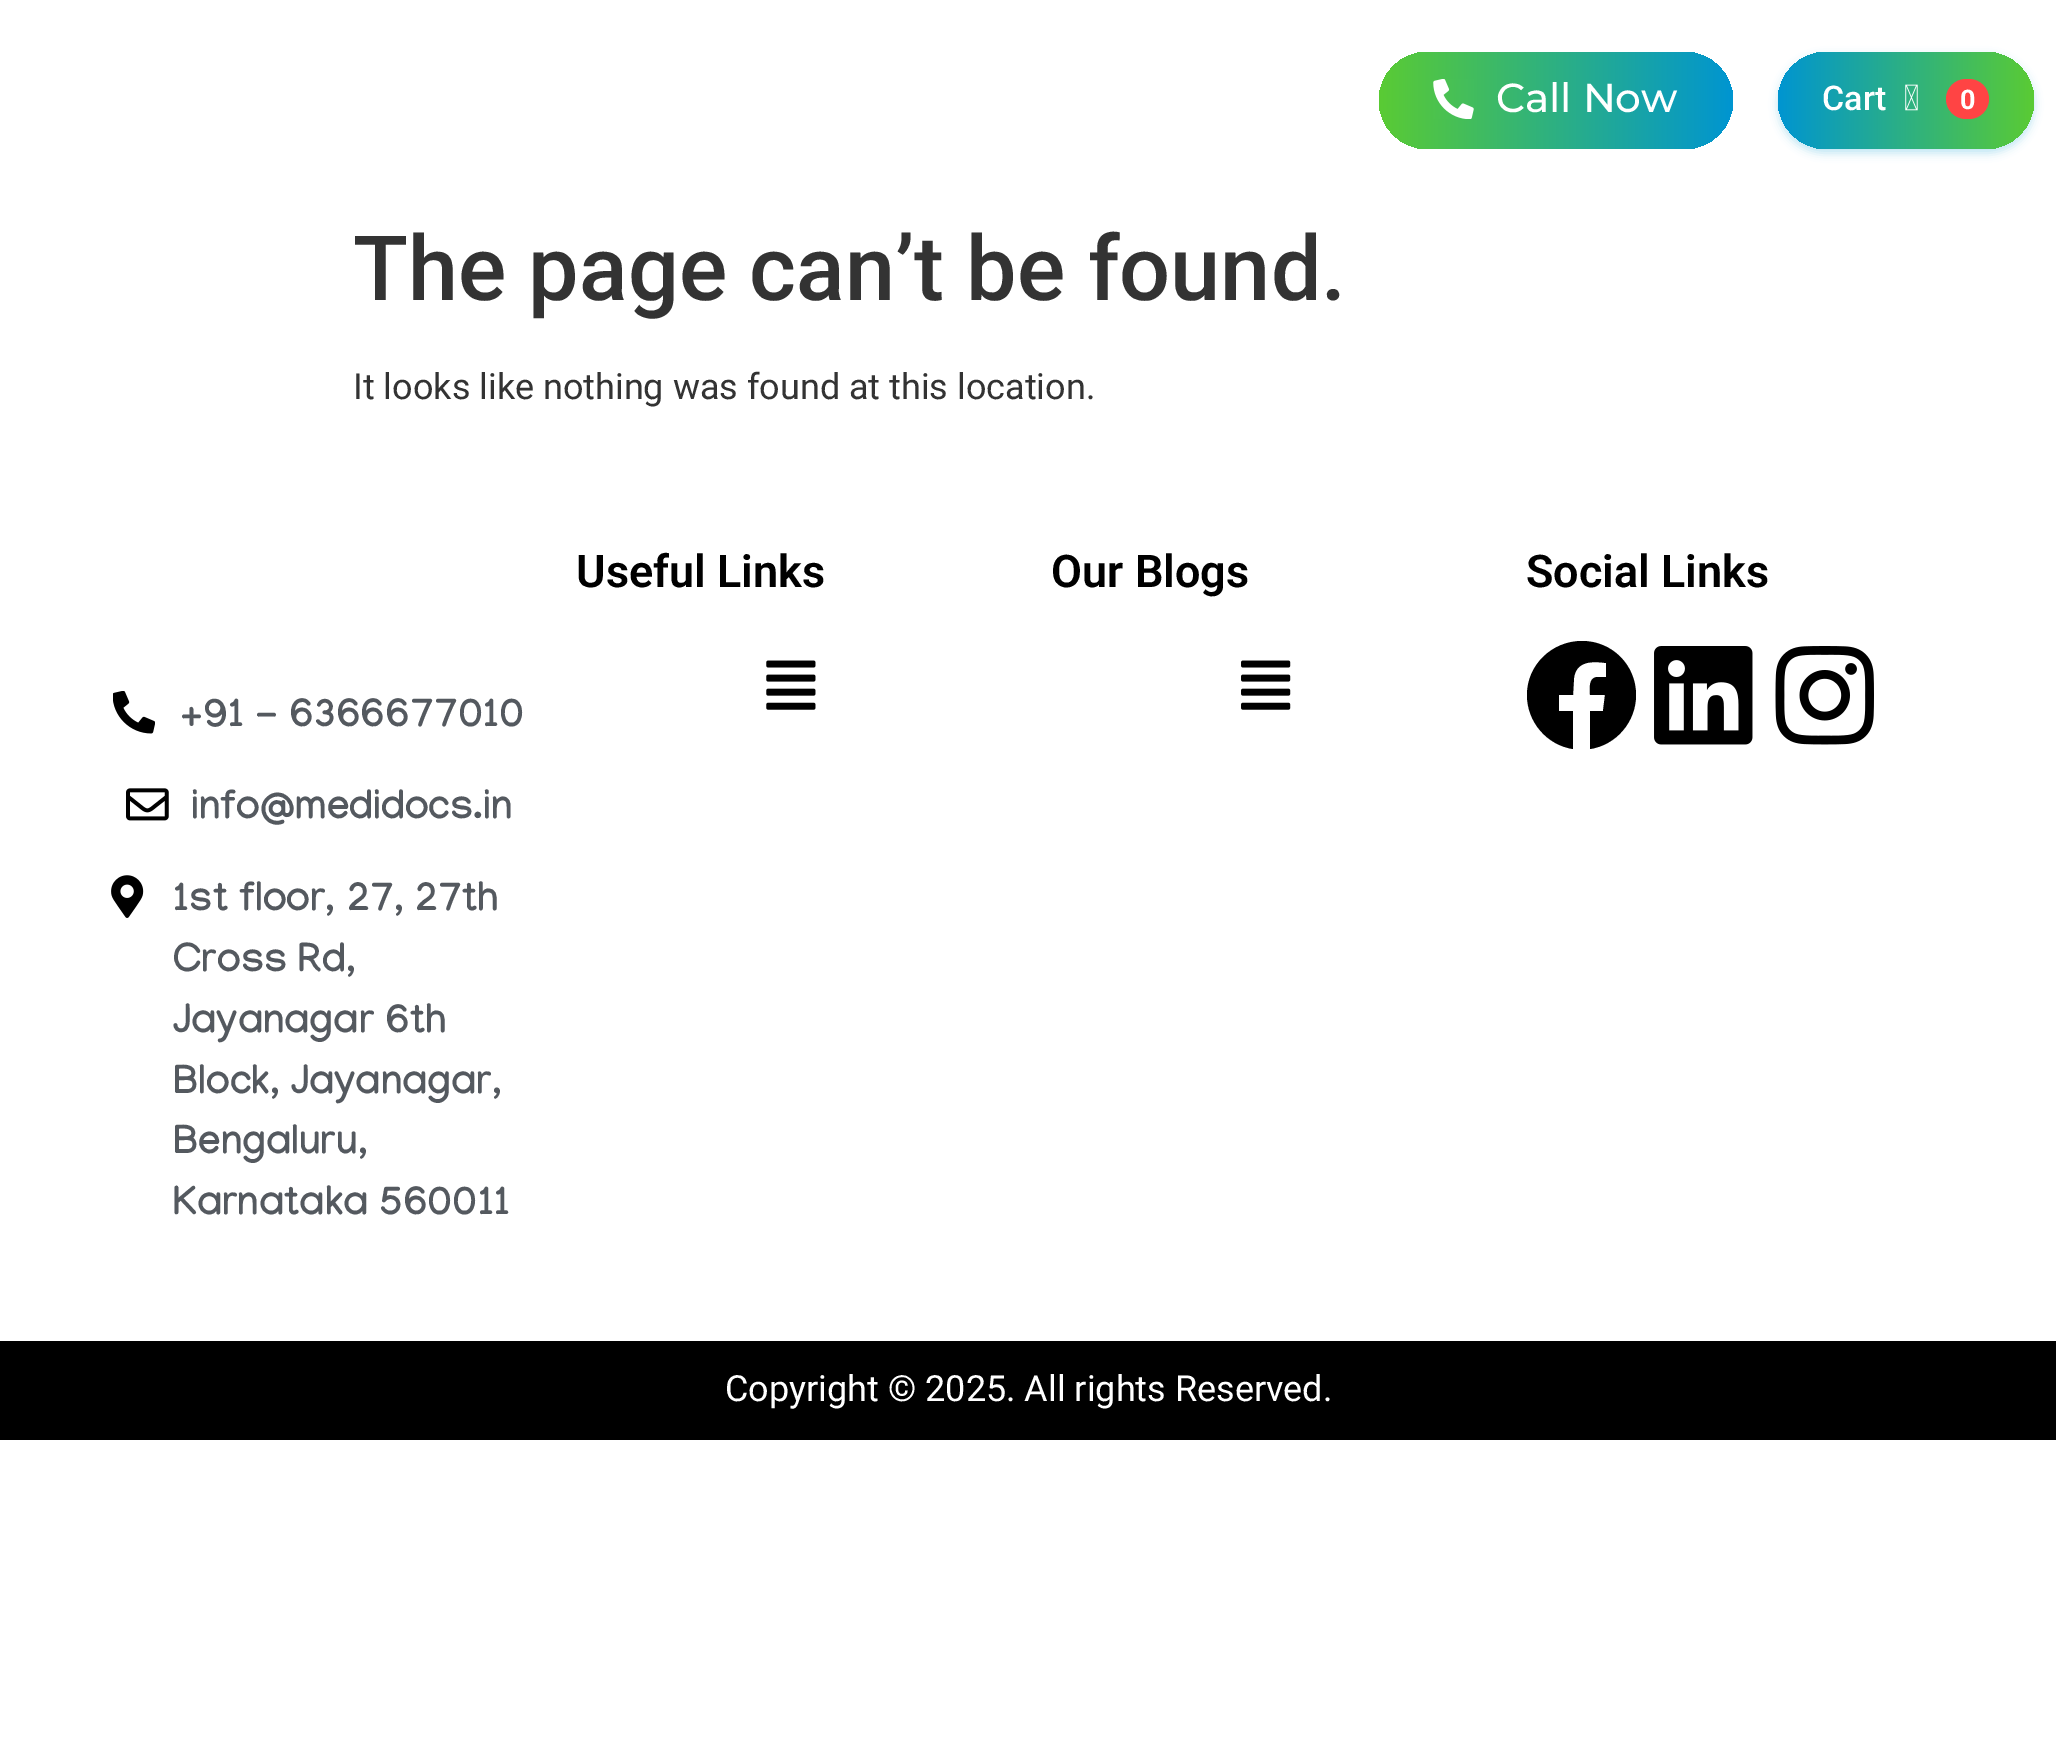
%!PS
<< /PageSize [2056 1745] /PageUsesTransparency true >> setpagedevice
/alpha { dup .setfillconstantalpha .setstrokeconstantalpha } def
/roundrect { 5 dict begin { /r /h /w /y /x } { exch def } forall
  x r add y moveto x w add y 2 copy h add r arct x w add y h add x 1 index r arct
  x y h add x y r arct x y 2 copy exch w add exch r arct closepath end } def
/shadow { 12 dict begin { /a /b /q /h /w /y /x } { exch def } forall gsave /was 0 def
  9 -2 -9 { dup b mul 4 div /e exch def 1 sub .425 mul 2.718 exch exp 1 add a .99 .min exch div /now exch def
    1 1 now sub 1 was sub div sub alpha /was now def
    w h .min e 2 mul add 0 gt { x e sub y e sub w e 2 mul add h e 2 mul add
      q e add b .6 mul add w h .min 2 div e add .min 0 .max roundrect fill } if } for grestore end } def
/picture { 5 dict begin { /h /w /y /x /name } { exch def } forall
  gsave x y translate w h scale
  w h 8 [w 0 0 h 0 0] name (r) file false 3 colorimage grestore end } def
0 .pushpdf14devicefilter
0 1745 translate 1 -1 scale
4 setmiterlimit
1 setgray
0 0 2056 1745 rectfill
gsave 1379 52 354 97 48.5 roundrect clip newpath
<< /ShadingType 2 /ColorSpace /DeviceRGB /Coords [1733 100 1379 100] /Extend [true true] /Function << /FunctionType 2 /Domain [0 1] /C0 [0 0.584 0.82] /C1 [0.353 0.796 0.204] /N 1 >> >> shfill grestore
(img1.rgb) 1433 79 41 40 picture
/Montserrat-Medium [40.5 0 0 -40.5 0 0] selectfont
1496 112 moveto (Call Now) show
0 0.584 0.82 setrgbcolor
1778 56 256 97 48.5 4.5 0.25 shadow
gsave 1778 52 256 97 48.5 roundrect clip newpath
<< /ShadingType 2 /ColorSpace /DeviceRGB /Coords [1778 100 2034 100] /Extend [true true] /Function << /FunctionType 2 /Domain [0 1] /C0 [0 0.584 0.82] /C1 [0.353 0.796 0.204] /N 1 >> >> shfill grestore
/Roboto-Medium [34 0 0 -34 0 0] selectfont
1 setgray
1822 110 moveto (Cart) show
(img2.rgb) 1905 84 13 27 picture
1 0.267 0.267 setrgbcolor
1946 79 43 40 20 roundrect fill
/Roboto-Bold [27 0 0 -27 0 0] selectfont
1 setgray
1960 109 moveto (0) show
/Roboto-Medium [90 0 0 -90 0 0] selectfont
0.2 setgray
353 300 moveto (The page can’t be found.) show
/Roboto-Regular [36 0 0 -36 0 0] selectfont
353 399 moveto (It looks like nothing was found at this location.) show
/Roboto-SemiBold [45 0 0 -45 0 0] selectfont
0 setgray
576 587 moveto (Useful Links) show
(img3.rgb) 766 660 50 50 picture
1051 587 moveto (Our Blogs) show
(img4.rgb) 1241 660 50 50 picture
1526 587 moveto (Social Links) show
newpath 1636 695 moveto 1636 665 1612 641 1582 641 curveto 1552 641 1527 665 1527 695 curveto 1527 722 1547 745 1573 749 curveto 1573 711 lineto 1559 711 lineto 1559 695 lineto 1573 695 lineto 1574 678 lineto 1576 661 1592 661 1606 663 curveto 1606 677 lineto 1597 677 lineto 1588 678 1590 689 1590 695 curveto 1605 695 lineto 1603 711 lineto 1590 711 lineto 1590 749 lineto 1616 745 1636 722 1636 695 curveto closepath fill
(img5.rgb) 1654 646 99 99 picture
(img6.rgb) 1775 646 99 99 picture
(img7.rgb) 113 691 42 43 picture
/Manjari-Bold [40.5 0 0 -40.5 0 0] selectfont
0.329 0.349 0.373 setrgbcolor
180 726 moveto (+91 - 6366677010) show
(img8.rgb) 126 788 43 33 picture
191 818 moveto (info@medidocs.in) show
(img9.rgb) 111 875 33 43 picture
173 910 moveto (1st floor, 27, 27th) show
173 971 moveto (Cross Rd,) show
173 1032 moveto (Jayanagar 6th) show
173 1093 moveto (Block, Jayanagar,) show
173 1153 moveto (Bengaluru,) show
173 1214 moveto (Karnataka 560011) show
0 setgray
0 1341 2056 99 rectfill
/Roboto-Regular [36 0 0 -36 0 0] selectfont
1 setgray
725 1401 moveto (Copyright © 2025. All rights Reserved.) show
.poppdf14devicefilter showpage
